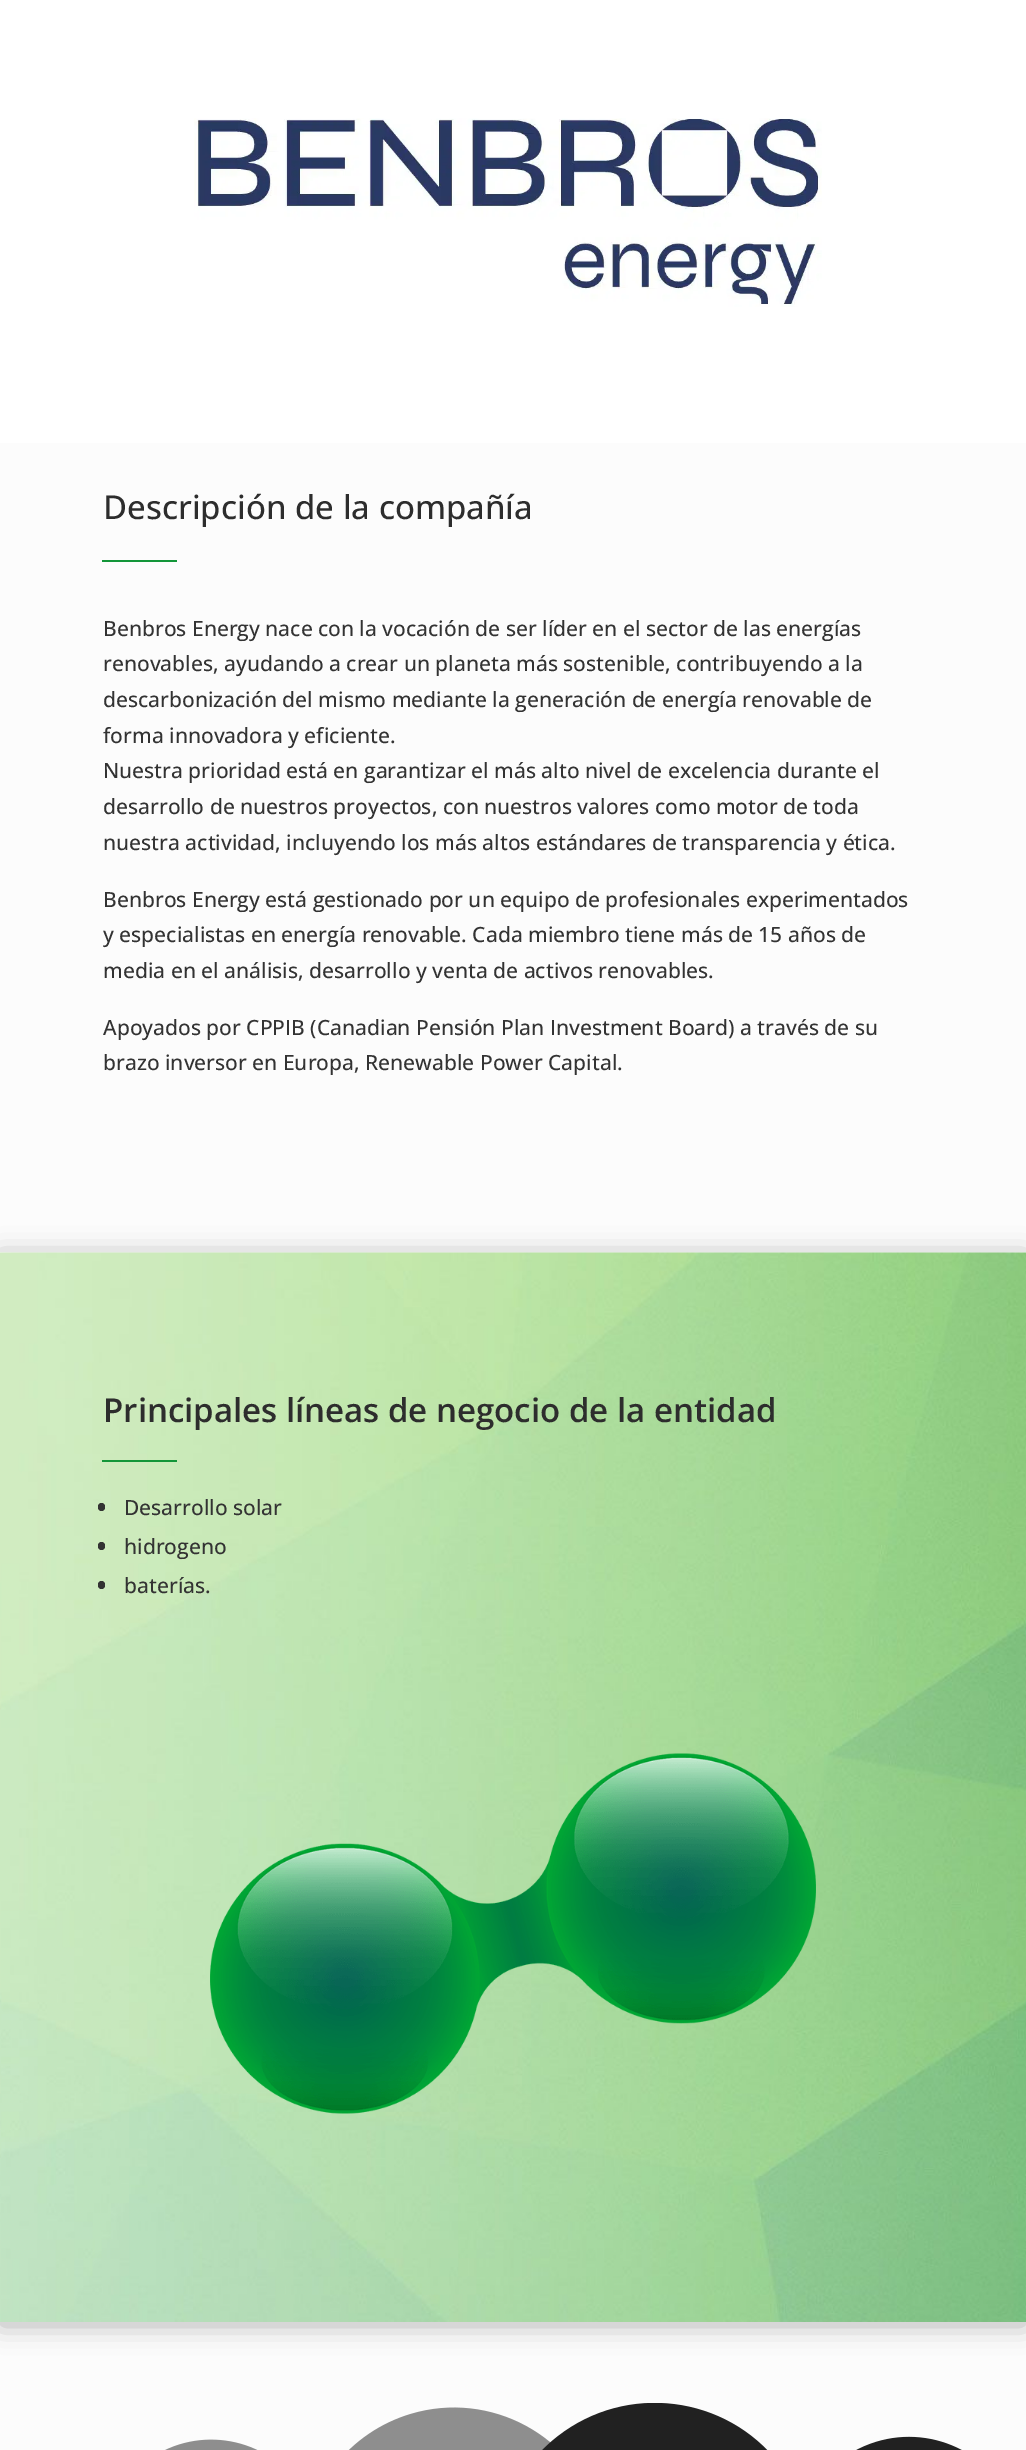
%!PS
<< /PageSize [1026 2450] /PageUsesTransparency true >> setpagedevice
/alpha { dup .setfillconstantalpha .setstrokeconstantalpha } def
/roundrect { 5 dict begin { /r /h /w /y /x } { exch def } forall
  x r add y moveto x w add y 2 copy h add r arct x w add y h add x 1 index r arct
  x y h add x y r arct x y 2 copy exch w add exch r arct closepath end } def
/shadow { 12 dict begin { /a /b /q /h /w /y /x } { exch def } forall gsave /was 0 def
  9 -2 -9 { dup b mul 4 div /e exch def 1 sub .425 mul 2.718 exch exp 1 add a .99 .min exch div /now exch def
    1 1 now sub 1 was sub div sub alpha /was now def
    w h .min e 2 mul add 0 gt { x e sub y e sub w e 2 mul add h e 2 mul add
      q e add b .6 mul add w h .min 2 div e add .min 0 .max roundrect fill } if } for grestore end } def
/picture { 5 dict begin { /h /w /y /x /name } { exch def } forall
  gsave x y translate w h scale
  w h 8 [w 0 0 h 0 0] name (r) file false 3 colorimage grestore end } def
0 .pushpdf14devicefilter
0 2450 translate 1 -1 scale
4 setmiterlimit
1 setgray
0 0 1026 2450 rectfill
(img1.rgb) 194 118 628 189 picture
0.988 setgray
0 443 1026 810 rectfill
/OpenSans-Medium [33 0 0 -33 0 0] selectfont
0.176 setgray
103 519 moveto (Descripción de la compañía) show
0.075 0.588 0.224 setrgbcolor
102 560 75 2 rectfill
/OpenSans-Medium [21 0 0 -21 0 0] selectfont
0.2 setgray
103 636 moveto (Benbros Energy nace con la vocación de ser líder en el sector de las energías) show
103 671 moveto (renovables, ayudando a crear un planeta más sostenible, contribuyendo a la) show
103 707 moveto (descarbonización del mismo mediante la generación de energía renovable de) show
103 743 moveto (forma innovadora y eficiente.) show
103 778 moveto (Nuestra prioridad está en garantizar el más alto nivel de excelencia durante el) show
103 814 moveto (desarrollo de nuestros proyectos, con nuestros valores como motor de toda) show
103 850 moveto (nuestra actividad, incluyendo los más altos estándares de transparencia y ética.) show
103 907 moveto (Benbros Energy está gestionado por un equipo de profesionales experimentados) show
103 942 moveto (y especialistas en energía renovable. Cada miembro tiene más de 15 años de) show
103 978 moveto (media en el análisis, desarrollo y venta de activos renovables.) show
103 1035 moveto (Apoyados por CPPIB \(Canadian Pensión Plan Investment Board\) a través de su) show
103 1070 moveto (brazo inversor en Europa, Renewable Power Capital.) show
0.988 setgray
0 2322 1026 128 rectfill
0 setgray
0 1256 1026 1069 0 13.5 0.3 shadow
(img2.rgb) 0 1252 1026 1070 picture
/OpenSans-SemiBold [33 0 0 -33 0 0] selectfont
0.176 setgray
103 1422 moveto (Principales líneas de negocio de la entidad) show
0.075 0.588 0.224 setrgbcolor
102 1460 75 2 rectfill
0.2 setgray
98 1503 7 8 3.5 roundrect fill
/OpenSans-Medium [21 0 0 -21 0 0] selectfont
124 1515 moveto (Desarrollo solar) show
98 1542 7 8 3.5 roundrect fill
124 1554 moveto (hidrogeno) show
98 1581 7 8 3.5 roundrect fill
124 1593 moveto (baterías.) show
(img3.rgb) 210 1753 606 361 picture
(img4.rgb) 165 2403 797 47 picture
.poppdf14devicefilter showpage
